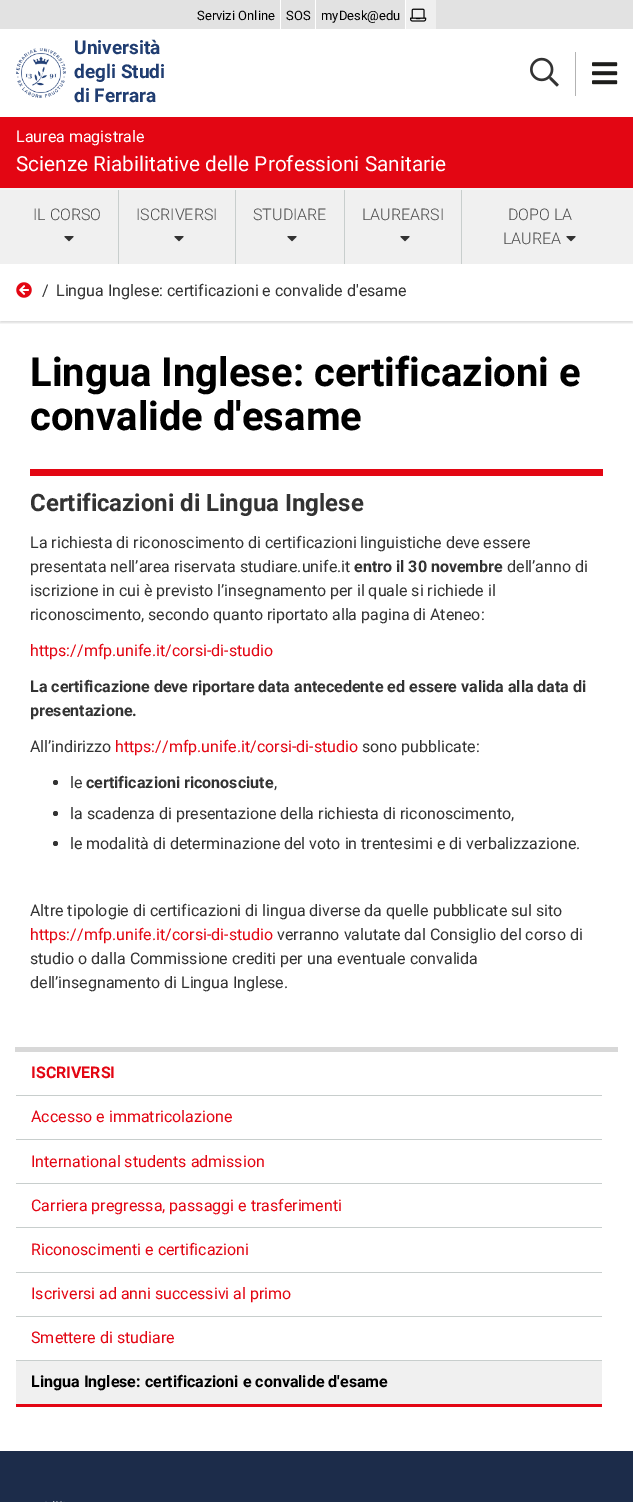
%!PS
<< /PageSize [633 1502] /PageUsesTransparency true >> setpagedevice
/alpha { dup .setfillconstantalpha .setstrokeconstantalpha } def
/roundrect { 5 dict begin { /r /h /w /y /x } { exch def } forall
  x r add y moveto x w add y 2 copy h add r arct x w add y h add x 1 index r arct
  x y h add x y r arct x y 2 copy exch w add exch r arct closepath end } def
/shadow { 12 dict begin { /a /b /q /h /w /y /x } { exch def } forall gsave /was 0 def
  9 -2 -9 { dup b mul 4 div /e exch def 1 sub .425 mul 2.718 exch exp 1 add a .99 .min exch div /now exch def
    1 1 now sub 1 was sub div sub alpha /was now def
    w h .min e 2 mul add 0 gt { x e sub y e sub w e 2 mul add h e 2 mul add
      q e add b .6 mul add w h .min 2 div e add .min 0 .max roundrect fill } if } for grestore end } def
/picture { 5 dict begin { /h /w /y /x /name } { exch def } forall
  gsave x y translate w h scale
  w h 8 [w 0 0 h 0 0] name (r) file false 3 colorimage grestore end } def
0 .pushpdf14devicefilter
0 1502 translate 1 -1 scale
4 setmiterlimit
1 setgray
0 0 633 1502 rectfill
0.886 setgray
0 0 633 29 rectfill
1 setgray
280 0 1 29 rectfill
/Roboto-Regular [13 0 0 -13 0 0] selectfont
0 setgray
197 20 moveto (Servizi Online) show
1 setgray
315 0 1 29 rectfill
0 setgray
286 20 moveto (SOS) show
1 setgray
405 0 1 29 rectfill
0 setgray
321 20 moveto (myDesk@edu) show
0.937 setgray
406 0 30 29 rectfill
(img1.rgb) 410 8 17 14 picture
0.957 setgray
0 188 633 2 rectfill
(img2.rgb) 16 48 50 50 picture
/Roboto-Bold [19 0 0 -19 0 0] selectfont
0.125 0.239 0.443 setrgbcolor
74 54 moveto (Università) show
74 78 moveto (degli Studi) show
74 102 moveto (di Ferrara) show
(img3.rgb) 530 57 29 30 picture
0.702 setgray
575 52 1 44 rectfill
(img4.rgb) 592 62 26 23 picture
0.89 0.024 0.075 setrgbcolor
0 117 633 71 rectfill
/Roboto-Regular [16 0 0 -16 0 0] selectfont
1 setgray
16 142 moveto (Laurea magistrale) show
/Roboto-Regular [20.8 0 0 -20.8 0 0] selectfont
16 171 moveto (Scienze Riabilitative delle Professioni Sanitarie) show
gsave
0 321 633 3 rectclip
0 setgray
0 266 633 57 0 1 0.13 shadow
grestore
0.941 setgray
0 190 633 74 rectfill
0.784 0.808 0.804 setrgbcolor
118 190 1 74 rectfill
/Roboto-Light [16 0 0 -16 0 0] selectfont
0.29 setgray
33 220 moveto (IL CORSO) show
(img5.rgb) 64 236 10 6 picture
0.784 0.808 0.804 setrgbcolor
235 190 1 74 rectfill
0.29 setgray
136 220 moveto (ISCRIVERSI) show
(img5.rgb) 174 236 10 6 picture
0.784 0.808 0.804 setrgbcolor
344 190 1 74 rectfill
0.29 setgray
253 220 moveto (STUDIARE) show
(img5.rgb) 287 236 10 6 picture
0.784 0.808 0.804 setrgbcolor
461 190 1 74 rectfill
0.29 setgray
362 220 moveto (LAUREARSI) show
(img5.rgb) 400 236 10 6 picture
508 220 moveto (DOPO LA) show
503 244 moveto (LAUREA) show
(img5.rgb) 566 236 10 6 picture
(img6.rgb) 16 282 16 16 picture
/Roboto-Regular [16 0 0 -16 0 0] selectfont
0.2 setgray
42 296 moveto (/) show
56 296 moveto (Lingua Inglese: certificazioni e convalide d'esame) show
/Roboto-Bold [40 0 0 -40 0 0] selectfont
0 setgray
30 386 moveto (Lingua Inglese: certificazioni e) show
30 430 moveto (convalide d'esame) show
0.89 0.024 0.075 setrgbcolor
30 469 573 7 rectfill
/Roboto-Bold [24 0 0 -24 0 0] selectfont
0.2 setgray
30 511 moveto (Certificazioni di Lingua Inglese) show
/Roboto-Regular [16 0 0 -16 0 0] selectfont
30 548 moveto (La richiesta di riconoscimento di certificazioni linguistiche deve essere) show
30 572 moveto (presentata nell’area riservata studiare.unife.it) show
/Roboto-Bold [16 0 0 -16 0 0] selectfont
354 572 moveto (entro il 30 novembre) show
/Roboto-Regular [16 0 0 -16 0 0] selectfont
507 572 moveto (dell’anno di) show
30 596 moveto (iscrizione in cui è previsto l’insegnamento per il quale si richiede il) show
30 620 moveto (riconoscimento, secondo quanto riportato alla pagina di Ateneo:) show
0.89 0.024 0.075 setrgbcolor
30 656 moveto (https://mfp.unife.it/corsi-di-studio) show
/Roboto-Bold [16 0 0 -16 0 0] selectfont
0.2 setgray
30 692 moveto (La certificazione deve riportare data antecedente ed essere valida alla data di) show
30 716 moveto (presentazione.) show
/Roboto-Regular [16 0 0 -16 0 0] selectfont
30 752 moveto (All’indirizzo) show
0.89 0.024 0.075 setrgbcolor
115 752 moveto (https://mfp.unife.it/corsi-di-studio) show
0.2 setgray
362 752 moveto (sono pubblicate:) show
newpath 55.5 782.5 2.5 0 360 arc closepath fill
70 788 moveto (le) show
/Roboto-Bold [16 0 0 -16 0 0] selectfont
86 788 moveto (certificazioni riconosciute) show
/Roboto-Regular [16 0 0 -16 0 0] selectfont
274 788 moveto (,) show
newpath 55.5 813.5 2.5 0 360 arc closepath fill
70 819 moveto (la scadenza di presentazione della richiesta di riconoscimento,) show
newpath 55.5 843.5 2.5 0 360 arc closepath fill
70 849 moveto (le modalità di determinazione del voto in trentesimi e di verbalizzazione.) show
30 916 moveto (Altre tipologie di certificazioni di lingua diverse da quelle pubblicate sul sito) show
0.89 0.024 0.075 setrgbcolor
30 940 moveto (https://mfp.unife.it/corsi-di-studio) show
0.2 setgray
277 940 moveto (verranno valutate dal Consiglio del corso di) show
30 964 moveto (studio o dalla Commissione crediti per una eventuale convalida) show
30 988 moveto (dell’insegnamento di Lingua Inglese.) show
0.847 setgray
15 1047 603 5 rectfill
0.784 0.808 0.804 setrgbcolor
16 1095 586 1 rectfill
/Roboto-Bold [16 0 0 -16 0 0] selectfont
0.89 0.024 0.075 setrgbcolor
31 1078 moveto (ISCRIVERSI) show
0.784 0.808 0.804 setrgbcolor
16 1139 586 1 rectfill
/Roboto-Regular [16 0 0 -16 0 0] selectfont
0.89 0.024 0.075 setrgbcolor
31 1122 moveto (Accesso e immatricolazione) show
0.784 0.808 0.804 setrgbcolor
16 1183 586 1 rectfill
0.89 0.024 0.075 setrgbcolor
31 1167 moveto (International students admission) show
0.784 0.808 0.804 setrgbcolor
16 1227 586 1 rectfill
0.89 0.024 0.075 setrgbcolor
31 1211 moveto (Carriera pregressa, passaggi e trasferimenti) show
0.784 0.808 0.804 setrgbcolor
16 1272 586 1 rectfill
0.89 0.024 0.075 setrgbcolor
31 1255 moveto (Riconoscimenti e certificazioni) show
0.784 0.808 0.804 setrgbcolor
16 1316 586 1 rectfill
0.89 0.024 0.075 setrgbcolor
31 1299 moveto (Iscriversi ad anni successivi al primo) show
0.784 0.808 0.804 setrgbcolor
16 1360 586 1 rectfill
0.89 0.024 0.075 setrgbcolor
31 1343 moveto (Smettere di studiare) show
0.941 setgray
16 1361 586 43 rectfill
0.89 0.024 0.075 setrgbcolor
16 1404 586 3 rectfill
/Roboto-Bold [16 0 0 -16 0 0] selectfont
0 setgray
31 1387 moveto (Lingua Inglese: certificazioni e convalide d'esame) show
0.11 0.173 0.29 setrgbcolor
0 1451 633 51 rectfill
(img7.rgb) 45 1501 20 1 picture
.poppdf14devicefilter showpage
